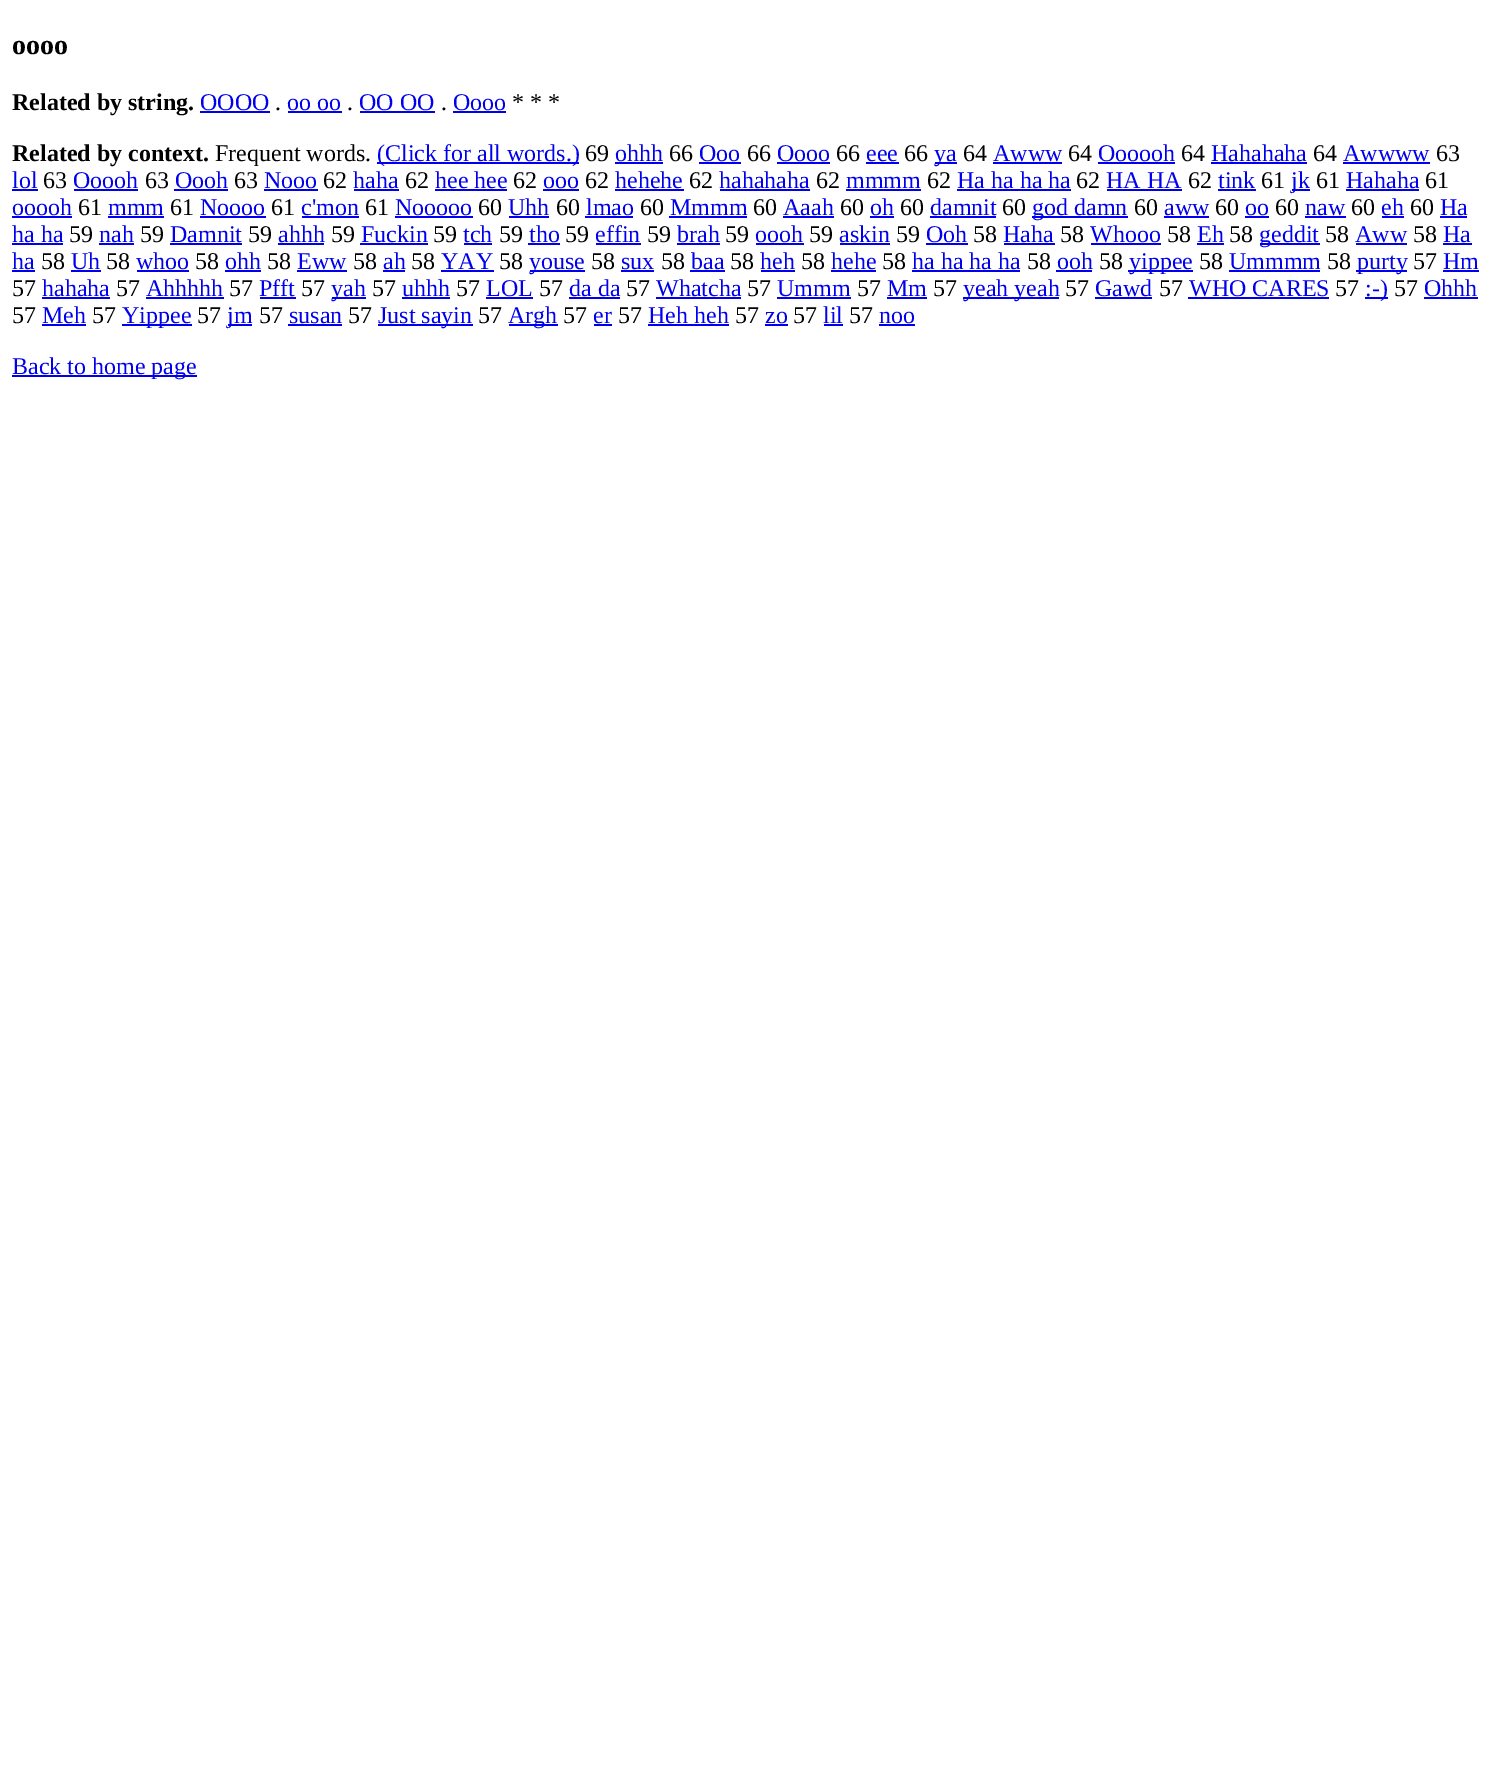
%!PS
<< /PageSize [1492 1770] >> setpagedevice
0 1770 translate 1 -1 scale
4 setmiterlimit
1 setgray
0 0 1492 1770 rectfill
/LiberationSerif-Bold [28 0 0 -28 0 0] selectfont
0 setgray
12 54 moveto (oooo) show
/LiberationSerif-Bold [24 0 0 -24 0 0] selectfont
12 110 moveto (Related by string.) show
/LiberationSerif-Regular [24 0 0 -24 0 0] selectfont
0 0 0.933 setrgbcolor
200 110 moveto (OOOO) show
200 111 70 2 rectfill
0 setgray
275 110 moveto (.) show
0 0 0.933 setrgbcolor
287 110 moveto (oo oo) show
288 111 54 2 rectfill
0 setgray
347 110 moveto (.) show
0 0 0.933 setrgbcolor
359 110 moveto (OO OO) show
360 111 75 2 rectfill
0 setgray
441 110 moveto (.) show
0 0 0.933 setrgbcolor
453 110 moveto (Oooo) show
453 111 53 2 rectfill
0 setgray
512 110 moveto (* * *) show
/LiberationSerif-Bold [24 0 0 -24 0 0] selectfont
12 161 moveto (Related by context.) show
/LiberationSerif-Regular [24 0 0 -24 0 0] selectfont
215 161 moveto (Frequent words.) show
0 0 0.933 setrgbcolor
377 162 202 2 rectfill
377 161 moveto (\(Click for all words.\)) show
0 setgray
585 161 moveto (69) show
0 0 0.933 setrgbcolor
615 161 moveto (ohhh) show
615 162 48 2 rectfill
0 setgray
669 161 moveto (66) show
0 0 0.933 setrgbcolor
699 161 moveto (Ooo) show
699 162 42 2 rectfill
0 setgray
747 161 moveto (66) show
0 0 0.933 setrgbcolor
777 161 moveto (Oooo) show
777 162 53 2 rectfill
0 setgray
836 161 moveto (66) show
0 0 0.933 setrgbcolor
866 161 moveto (eee) show
866 162 33 2 rectfill
0 setgray
904 161 moveto (66) show
0 0 0.933 setrgbcolor
935 162 22 2 rectfill
934 161 moveto (ya) show
0 setgray
963 161 moveto (64) show
0 0 0.933 setrgbcolor
993 161 moveto (Awww) show
993 162 69 2 rectfill
0 setgray
1068 161 moveto (64) show
0 0 0.933 setrgbcolor
1098 161 moveto (Oooooh) show
1098 162 77 2 rectfill
0 setgray
1181 161 moveto (64) show
0 0 0.933 setrgbcolor
1211 161 moveto (Hahahaha) show
1211 162 96 2 rectfill
0 setgray
1313 161 moveto (64) show
0 0 0.933 setrgbcolor
1343 161 moveto (Awwww) show
1343 162 87 2 rectfill
0 setgray
1436 161 moveto (63) show
0 0 0.933 setrgbcolor
12 188 moveto (lol) show
12 189 26 2 rectfill
0 setgray
43 188 moveto (63) show
0 0 0.933 setrgbcolor
73 188 moveto (Ooooh) show
74 189 64 2 rectfill
0 setgray
145 188 moveto (63) show
0 0 0.933 setrgbcolor
175 188 moveto (Oooh) show
174 189 54 2 rectfill
0 setgray
234 188 moveto (63) show
0 0 0.933 setrgbcolor
264 188 moveto (Nooo) show
264 189 54 2 rectfill
0 setgray
323 188 moveto (62) show
0 0 0.933 setrgbcolor
353 188 moveto (haha) show
354 189 45 2 rectfill
0 setgray
405 188 moveto (62) show
0 0 0.933 setrgbcolor
435 188 moveto (hee hee) show
435 189 72 2 rectfill
0 setgray
513 188 moveto (62) show
0 0 0.933 setrgbcolor
543 188 moveto (ooo) show
543 189 36 2 rectfill
0 setgray
585 188 moveto (62) show
0 0 0.933 setrgbcolor
615 188 moveto (hehehe) show
615 189 69 2 rectfill
0 setgray
689 188 moveto (62) show
0 0 0.933 setrgbcolor
719 188 moveto (hahahaha) show
720 189 90 2 rectfill
0 setgray
816 188 moveto (62) show
0 0 0.933 setrgbcolor
846 188 moveto (mmmm) show
846 189 75 2 rectfill
0 setgray
927 188 moveto (62) show
0 0 0.933 setrgbcolor
957 188 moveto (Ha ha ha ha) show
957 189 114 2 rectfill
0 setgray
1076 188 moveto (62) show
0 0 0.933 setrgbcolor
1106 188 moveto (HA HA) show
1107 189 75 2 rectfill
0 setgray
1188 188 moveto (62) show
0 0 0.933 setrgbcolor
1218 188 moveto (tink) show
1218 189 38 2 rectfill
0 setgray
1261 188 moveto (61) show
0 0 0.933 setrgbcolor
1292 189 18 2 rectfill
1291 188 moveto (jk) show
0 setgray
1316 188 moveto (61) show
0 0 0.933 setrgbcolor
1346 188 moveto (Hahaha) show
1346 189 73 2 rectfill
0 setgray
1425 188 moveto (61) show
0 0 0.933 setrgbcolor
12 215 moveto (ooooh) show
12 216 60 2 rectfill
0 setgray
78 215 moveto (61) show
0 0 0.933 setrgbcolor
108 215 moveto (mmm) show
108 216 56 2 rectfill
0 setgray
170 215 moveto (61) show
0 0 0.933 setrgbcolor
200 215 moveto (Noooo) show
200 216 66 2 rectfill
0 setgray
271 215 moveto (61) show
0 0 0.933 setrgbcolor
301 215 moveto (c'mon) show
302 216 57 2 rectfill
0 setgray
365 215 moveto (61) show
0 0 0.933 setrgbcolor
395 215 moveto (Nooooo) show
395 216 78 2 rectfill
0 setgray
478 215 moveto (60) show
0 0 0.933 setrgbcolor
508 215 moveto (Uhh) show
509 216 40 2 rectfill
0 setgray
556 215 moveto (60) show
0 0 0.933 setrgbcolor
586 215 moveto (lmao) show
585 216 48 2 rectfill
0 setgray
640 215 moveto (60) show
0 0 0.933 setrgbcolor
670 215 moveto (Mmmm) show
669 216 78 2 rectfill
0 setgray
753 215 moveto (60) show
0 0 0.933 setrgbcolor
783 215 moveto (Aaah) show
783 216 51 2 rectfill
0 setgray
840 215 moveto (60) show
0 0 0.933 setrgbcolor
870 215 moveto (oh) show
870 216 24 2 rectfill
0 setgray
900 215 moveto (60) show
0 0 0.933 setrgbcolor
930 215 moveto (damnit) show
930 216 66 2 rectfill
0 setgray
1002 215 moveto (60) show
0 0 0.933 setrgbcolor
1032 216 96 2 rectfill
1032 215 moveto (god damn) show
0 setgray
1134 215 moveto (60) show
0 0 0.933 setrgbcolor
1164 215 moveto (aww) show
1164 216 45 2 rectfill
0 setgray
1215 215 moveto (60) show
0 0 0.933 setrgbcolor
1245 215 moveto (oo) show
1245 216 24 2 rectfill
0 setgray
1275 215 moveto (60) show
0 0 0.933 setrgbcolor
1305 215 moveto (naw) show
1305 216 41 2 rectfill
0 setgray
1351 215 moveto (60) show
0 0 0.933 setrgbcolor
1381 215 moveto (eh) show
1382 216 22 2 rectfill
0 setgray
1410 215 moveto (60) show
0 0 0.933 setrgbcolor
1440 215 moveto (Ha) show
1440 216 27 2 rectfill
12 242 moveto (ha ha) show
12 243 51 2 rectfill
0 setgray
69 242 moveto (59) show
0 0 0.933 setrgbcolor
99 242 moveto (nah) show
99 243 35 2 rectfill
0 setgray
140 242 moveto (59) show
0 0 0.933 setrgbcolor
170 242 moveto (Damnit) show
170 243 72 2 rectfill
0 setgray
248 242 moveto (59) show
0 0 0.933 setrgbcolor
278 242 moveto (ahhh) show
278 243 46 2 rectfill
0 setgray
331 242 moveto (59) show
0 0 0.933 setrgbcolor
361 242 moveto (Fuckin) show
360 243 68 2 rectfill
0 setgray
433 242 moveto (59) show
0 0 0.933 setrgbcolor
463 242 moveto (tch) show
464 243 28 2 rectfill
0 setgray
499 242 moveto (59) show
0 0 0.933 setrgbcolor
529 242 moveto (tho) show
528 243 32 2 rectfill
0 setgray
565 242 moveto (59) show
0 0 0.933 setrgbcolor
595 242 moveto (effin) show
596 243 45 2 rectfill
0 setgray
647 242 moveto (59) show
0 0 0.933 setrgbcolor
677 242 moveto (brah) show
677 243 43 2 rectfill
0 setgray
725 242 moveto (59) show
0 0 0.933 setrgbcolor
755 242 moveto (oooh) show
756 243 48 2 rectfill
0 setgray
809 242 moveto (59) show
0 0 0.933 setrgbcolor
839 242 moveto (askin) show
840 243 50 2 rectfill
0 setgray
896 242 moveto (59) show
0 0 0.933 setrgbcolor
926 242 moveto (Ooh) show
926 243 42 2 rectfill
0 setgray
973 242 moveto (58) show
0 0 0.933 setrgbcolor
1003 242 moveto (Haha) show
1004 243 51 2 rectfill
0 setgray
1060 242 moveto (58) show
0 0 0.933 setrgbcolor
1090 242 moveto (Whooo) show
1091 243 70 2 rectfill
0 setgray
1167 242 moveto (58) show
0 0 0.933 setrgbcolor
1197 242 moveto (Eh) show
1197 243 27 2 rectfill
0 setgray
1229 242 moveto (58) show
0 0 0.933 setrgbcolor
1260 243 60 2 rectfill
1259 242 moveto (geddit) show
0 setgray
1325 242 moveto (58) show
0 0 0.933 setrgbcolor
1355 242 moveto (Aww) show
1356 243 51 2 rectfill
0 setgray
1413 242 moveto (58) show
0 0 0.933 setrgbcolor
1443 242 moveto (Ha) show
1443 243 29 2 rectfill
12 269 moveto (ha) show
12 270 23 2 rectfill
0 setgray
41 269 moveto (58) show
0 0 0.933 setrgbcolor
71 269 moveto (Uh) show
71 270 30 2 rectfill
0 setgray
106 269 moveto (58) show
0 0 0.933 setrgbcolor
136 269 moveto (whoo) show
137 270 52 2 rectfill
0 setgray
195 269 moveto (58) show
0 0 0.933 setrgbcolor
225 269 moveto (ohh) show
225 270 36 2 rectfill
0 setgray
267 269 moveto (58) show
0 0 0.933 setrgbcolor
297 269 moveto (Eww) show
297 270 50 2 rectfill
0 setgray
353 269 moveto (58) show
0 0 0.933 setrgbcolor
383 269 moveto (ah) show
383 270 22 2 rectfill
0 setgray
411 269 moveto (58) show
0 0 0.933 setrgbcolor
441 269 moveto (YAY) show
441 270 53 2 rectfill
0 setgray
499 269 moveto (58) show
0 0 0.933 setrgbcolor
530 270 55 2 rectfill
529 269 moveto (youse) show
0 setgray
591 269 moveto (58) show
0 0 0.933 setrgbcolor
621 269 moveto (sux) show
621 270 33 2 rectfill
0 setgray
661 269 moveto (58) show
0 0 0.933 setrgbcolor
691 269 moveto (baa) show
690 270 35 2 rectfill
0 setgray
730 269 moveto (58) show
0 0 0.933 setrgbcolor
760 269 moveto (heh) show
761 270 34 2 rectfill
0 setgray
801 269 moveto (58) show
0 0 0.933 setrgbcolor
831 269 moveto (hehe) show
831 270 45 2 rectfill
0 setgray
882 269 moveto (58) show
0 0 0.933 setrgbcolor
912 269 moveto (ha ha ha ha) show
912 270 108 2 rectfill
0 setgray
1027 269 moveto (58) show
0 0 0.933 setrgbcolor
1057 269 moveto (ooh) show
1056 270 36 2 rectfill
0 setgray
1099 269 moveto (58) show
0 0 0.933 setrgbcolor
1128 270 65 2 rectfill
1129 269 moveto (yippee) show
0 setgray
1199 269 moveto (58) show
0 0 0.933 setrgbcolor
1229 269 moveto (Ummmm) show
1229 270 91 2 rectfill
0 setgray
1327 269 moveto (58) show
0 0 0.933 setrgbcolor
1356 270 51 2 rectfill
1357 269 moveto (purty) show
0 setgray
1413 269 moveto (57) show
0 0 0.933 setrgbcolor
1443 269 moveto (Hm) show
1443 270 36 2 rectfill
0 setgray
12 296 moveto (57) show
0 0 0.933 setrgbcolor
42 296 moveto (hahaha) show
42 297 68 2 rectfill
0 setgray
116 296 moveto (57) show
0 0 0.933 setrgbcolor
146 296 moveto (Ahhhhh) show
146 297 78 2 rectfill
0 setgray
229 296 moveto (57) show
0 0 0.933 setrgbcolor
259 296 moveto (Pfft) show
260 297 36 2 rectfill
0 setgray
301 296 moveto (57) show
0 0 0.933 setrgbcolor
332 297 34 2 rectfill
331 296 moveto (yah) show
0 setgray
372 296 moveto (57) show
0 0 0.933 setrgbcolor
402 296 moveto (uhhh) show
402 297 48 2 rectfill
0 setgray
456 296 moveto (57) show
0 0 0.933 setrgbcolor
486 296 moveto (LOL) show
486 297 47 2 rectfill
0 setgray
539 296 moveto (57) show
0 0 0.933 setrgbcolor
569 296 moveto (da da) show
569 297 51 2 rectfill
0 setgray
626 296 moveto (57) show
0 0 0.933 setrgbcolor
656 296 moveto (Whatcha) show
656 297 85 2 rectfill
0 setgray
747 296 moveto (57) show
0 0 0.933 setrgbcolor
777 296 moveto (Ummm) show
777 297 74 2 rectfill
0 setgray
857 296 moveto (57) show
0 0 0.933 setrgbcolor
887 296 moveto (Mm) show
887 297 40 2 rectfill
0 setgray
933 296 moveto (57) show
0 0 0.933 setrgbcolor
963 297 96 2 rectfill
963 296 moveto (yeah yeah) show
0 setgray
1065 296 moveto (57) show
0 0 0.933 setrgbcolor
1095 296 moveto (Gawd) show
1095 297 57 2 rectfill
0 setgray
1159 296 moveto (57) show
0 0 0.933 setrgbcolor
1189 296 moveto (WHO CARES) show
1188 297 141 2 rectfill
0 setgray
1335 296 moveto (57) show
0 0 0.933 setrgbcolor
1365 297 23 2 rectfill
1365 296 moveto (:-\)) show
0 setgray
1394 296 moveto (57) show
0 0 0.933 setrgbcolor
1424 296 moveto (Ohhh) show
1424 297 54 2 rectfill
0 setgray
12 323 moveto (57) show
0 0 0.933 setrgbcolor
42 323 moveto (Meh) show
42 324 44 2 rectfill
0 setgray
92 323 moveto (57) show
0 0 0.933 setrgbcolor
122 324 70 2 rectfill
122 323 moveto (Yippee) show
0 setgray
197 323 moveto (57) show
0 0 0.933 setrgbcolor
228 324 24 2 rectfill
227 323 moveto (jm) show
0 setgray
259 323 moveto (57) show
0 0 0.933 setrgbcolor
289 323 moveto (susan) show
288 324 54 2 rectfill
0 setgray
348 323 moveto (57) show
0 0 0.933 setrgbcolor
378 324 95 2 rectfill
378 323 moveto (Just sayin) show
0 setgray
478 323 moveto (57) show
0 0 0.933 setrgbcolor
509 324 49 2 rectfill
508 323 moveto (Argh) show
0 setgray
563 323 moveto (57) show
0 0 0.933 setrgbcolor
593 323 moveto (er) show
594 324 18 2 rectfill
0 setgray
618 323 moveto (57) show
0 0 0.933 setrgbcolor
648 323 moveto (Heh heh) show
648 324 81 2 rectfill
0 setgray
735 323 moveto (57) show
0 0 0.933 setrgbcolor
765 323 moveto (zo) show
765 324 23 2 rectfill
0 setgray
793 323 moveto (57) show
0 0 0.933 setrgbcolor
823 323 moveto (lil) show
824 324 19 2 rectfill
0 setgray
849 323 moveto (57) show
0 0 0.933 setrgbcolor
879 323 moveto (noo) show
879 324 36 2 rectfill
12 375 185 2 rectfill
12 374 moveto (Back to home page) show
showpage
